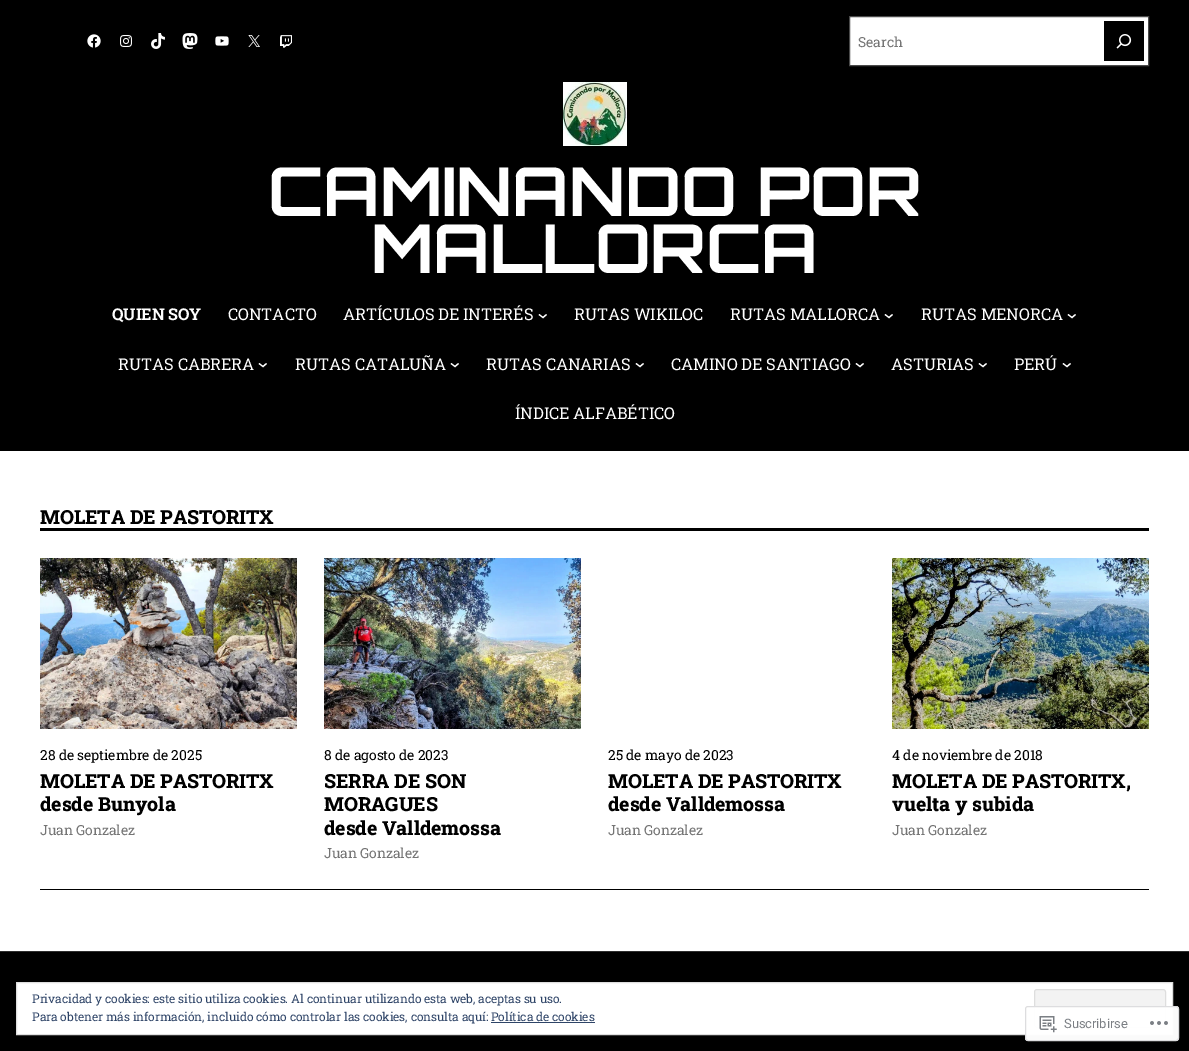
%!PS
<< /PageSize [1189 1051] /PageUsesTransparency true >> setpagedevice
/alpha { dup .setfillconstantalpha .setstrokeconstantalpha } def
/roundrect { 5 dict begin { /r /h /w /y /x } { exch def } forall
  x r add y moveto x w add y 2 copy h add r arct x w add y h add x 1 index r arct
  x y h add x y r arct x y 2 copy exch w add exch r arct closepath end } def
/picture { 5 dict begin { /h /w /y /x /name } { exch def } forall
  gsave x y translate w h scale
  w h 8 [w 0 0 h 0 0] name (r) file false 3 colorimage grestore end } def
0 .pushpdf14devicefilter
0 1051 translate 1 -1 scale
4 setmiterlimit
1 setgray
0 0 1189 1051 rectfill
0 setgray
0 0 1189 451 rectfill
(img1.rgb) 87 34 14 14 picture
(img2.rgb) 120 35 12 12 picture
(img3.rgb) 151 33 14 16 picture
(img4.rgb) 182 33 16 16 picture
(img5.rgb) 215 36 14 10 picture
(img6.rgb) 248 35 12 12 picture
(img7.rgb) 280 35 12 13 picture
1 setgray
newpath 849.5 16.5 moveto 1148.5 16.5 lineto 1148.5 65.5 lineto 849.5 65.5 lineto closepath gsave fill grestore
0.29 setgray
stroke
/RobotoSlab-Regular [13.9 0 0 -13.9 0 0] selectfont
0.459 setgray
858 47 moveto -0.08 0 (Search) ashow
0 setgray
1104 21 40 40 rectfill
(img8.rgb) 1116 34 16 15 picture
(img9.rgb) 563 82 64 64 picture
/Orbitron-Bold [67.4 0 0 -67.4 0 0] selectfont
1 setgray
268 216 moveto -0.08 0 (CAMINANDO POR) ashow
371 273 moveto -0.08 0 (MALLORCA) ashow
/RobotoSlab-Bold [16.25 0 0 -16.25 0 0] selectfont
112 320 moveto -0.08 0 (QUIEN SOY) ashow
/RobotoSlab-Regular [16.25 0 0 -16.25 0 0] selectfont
228 320 moveto -0.08 0 (CONTACTO) ashow
343 320 moveto -0.08 0 (ARTÍCULOS DE INTERÉS) ashow
1.2 setlinewidth
newpath 539 314.5 moveto 543 317.5 lineto 546.5 314.5 lineto stroke
574 320 moveto -0.08 0 (RUTAS WIKILOC) ashow
730 320 moveto -0.08 0 (RUTAS MALLORCA) ashow
newpath 885 314.5 moveto 889 317.5 lineto 892.5 314.5 lineto stroke
921 320 moveto -0.08 0 (RUTAS MENORCA) ashow
newpath 1068 314.5 moveto 1072 317.5 lineto 1075.5 314.5 lineto stroke
118 370 moveto -0.08 0 (RUTAS CABRERA) ashow
newpath 259 363.5 moveto 263 366.5 lineto 266.5 363.5 lineto stroke
295 370 moveto -0.08 0 (RUTAS CATALUÑA) ashow
newpath 451 363.5 moveto 455 366.5 lineto 458.5 363.5 lineto stroke
486 370 moveto -0.08 0 (RUTAS CANARIAS) ashow
newpath 636 363.5 moveto 640 366.5 lineto 643.5 363.5 lineto stroke
671 370 moveto -0.08 0 (CAMINO DE SANTIAGO) ashow
newpath 856 363.5 moveto 860 366.5 lineto 863.5 363.5 lineto stroke
891 370 moveto -0.08 0 (ASTURIAS) ashow
newpath 979 363.5 moveto 983 366.5 lineto 986.5 363.5 lineto stroke
1014 370 moveto -0.08 0 (PERÚ) ashow
newpath 1063 363.5 moveto 1067 366.5 lineto 1070.5 363.5 lineto stroke
515 419 moveto -0.08 0 (ÍNDICE ALFABÉTICO) ashow
0 setgray
40 528 1109 3 rectfill
/RobotoSlab-ExtraBold [19.5 0 0 -19.5 0 0] selectfont
40 524 moveto -0.08 0 (MOLETA DE PASTORITX) ashow
(img10.rgb) 40 558 257 171 picture
/RobotoSlab-Regular [13.9 0 0 -13.9 0 0] selectfont
40 760 moveto -0.08 0 (28 de septiembre de 2025) ashow
/RobotoSlab-ExtraBold [19.5 0 0 -19.5 0 0] selectfont
40 788 moveto -0.08 0 (MOLETA DE PASTORITX) ashow
40 811 moveto -0.08 0 (desde Bunyola) ashow
/RobotoSlab-Regular [13.9 0 0 -13.9 0 0] selectfont
0.459 setgray
40 835 moveto -0.08 0 (Juan Gonzalez) ashow
(img11.rgb) 324 558 257 171 picture
0 setgray
324 760 moveto -0.08 0 (8 de agosto de 2023) ashow
/RobotoSlab-ExtraBold [19.5 0 0 -19.5 0 0] selectfont
324 788 moveto -0.08 0 (SERRA DE SON) ashow
324 811 moveto -0.08 0 (MORAGUES) ashow
324 835 moveto -0.08 0 (desde Valldemossa) ashow
/RobotoSlab-Regular [13.9 0 0 -13.9 0 0] selectfont
0.459 setgray
324 858 moveto -0.08 0 (Juan Gonzalez) ashow
0 setgray
608 760 moveto -0.08 0 (25 de mayo de 2023) ashow
/RobotoSlab-ExtraBold [19.5 0 0 -19.5 0 0] selectfont
608 788 moveto -0.08 0 (MOLETA DE PASTORITX) ashow
608 811 moveto -0.08 0 (desde Valldemossa) ashow
/RobotoSlab-Regular [13.9 0 0 -13.9 0 0] selectfont
0.459 setgray
608 835 moveto -0.08 0 (Juan Gonzalez) ashow
(img12.rgb) 892 558 257 171 picture
0 setgray
892 760 moveto -0.08 0 (4 de noviembre de 2018) ashow
/RobotoSlab-ExtraBold [19.5 0 0 -19.5 0 0] selectfont
892 788 moveto -0.08 0 (MOLETA DE PASTORITX,) ashow
892 811 moveto -0.08 0 (vuelta y subida) ashow
/RobotoSlab-Regular [13.9 0 0 -13.9 0 0] selectfont
0.459 setgray
892 835 moveto -0.08 0 (Juan Gonzalez) ashow
0 setgray
40 889 1109 1 rectfill
0 952 1189 99 rectfill
0.18 setgray
0 951 1189 1 rectfill
1 setgray
newpath 16.5 982.5 moveto 1172.5 982.5 lineto 1172.5 1034.5 lineto 16.5 1034.5 lineto closepath gsave fill grestore
0.871 setgray
1 setlinewidth
stroke
/RobotoSlab-Regular [12 0 0 -12 0 0] selectfont
0.18 0.267 0.404 setrgbcolor
32 1003 moveto -0.08 0 (Privacidad y cookies: este sitio utiliza cookies. Al continuar utilizando esta web, aceptas su uso.) ashow
0.953 setgray
1034.5 989.5 131 38 2.5 roundrect gsave fill grestore
0.871 setgray
stroke
0.18 0.267 0.404 setrgbcolor
32 1021 moveto -0.08 0 (Para obtener más información, incluido cómo controlar las cookies, consulta aquí: Política de cookies) ashow
491 1022 104 1 rectfill
0.98 alpha
1 setgray
1025 1006 154 35 3 roundrect fill
0.863 0.863 0.871 setrgbcolor
1025.5 1006.5 153 34 2.5 roundrect stroke
1 alpha
(img13.rgb) 1039 1016 18 17 picture
/Roboto-Regular [13 0 0 -13 0 0] selectfont
0.482 0.498 0.518 setrgbcolor
1064 1028 moveto -0.08 0 (Suscribirse) ashow
(img14.rgb) 1150 1021 18 4 picture
.poppdf14devicefilter showpage
